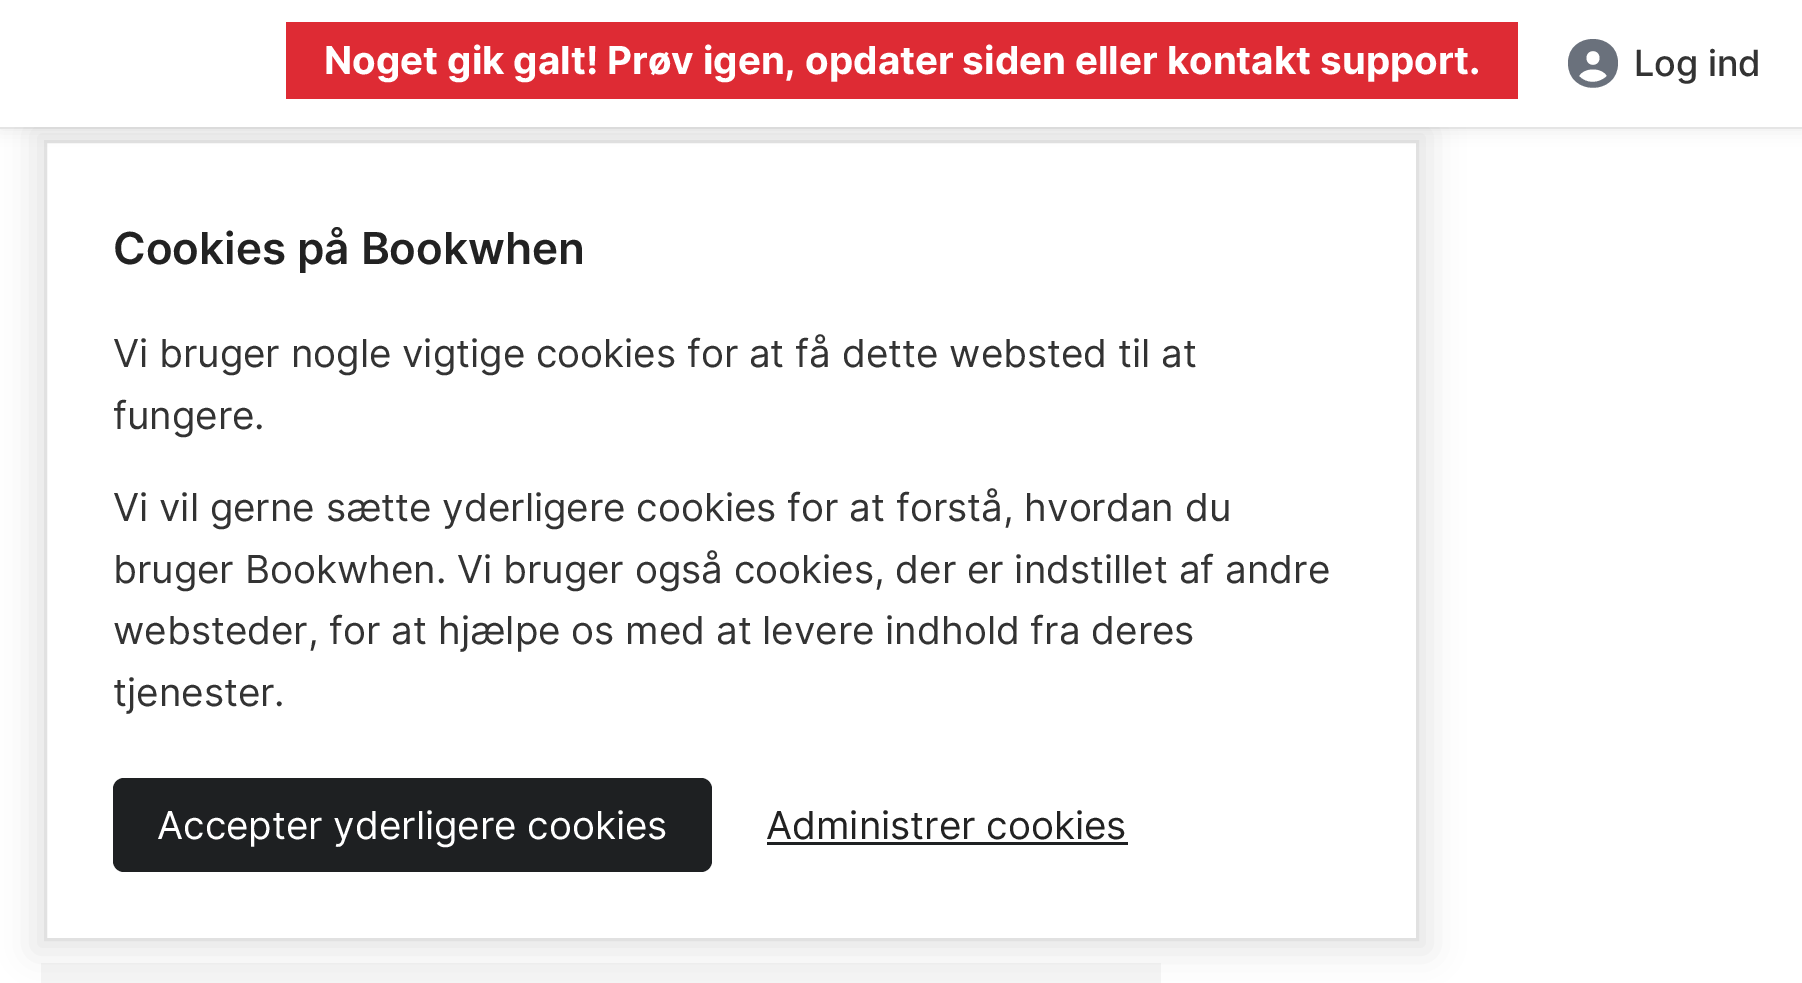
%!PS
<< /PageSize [1802 983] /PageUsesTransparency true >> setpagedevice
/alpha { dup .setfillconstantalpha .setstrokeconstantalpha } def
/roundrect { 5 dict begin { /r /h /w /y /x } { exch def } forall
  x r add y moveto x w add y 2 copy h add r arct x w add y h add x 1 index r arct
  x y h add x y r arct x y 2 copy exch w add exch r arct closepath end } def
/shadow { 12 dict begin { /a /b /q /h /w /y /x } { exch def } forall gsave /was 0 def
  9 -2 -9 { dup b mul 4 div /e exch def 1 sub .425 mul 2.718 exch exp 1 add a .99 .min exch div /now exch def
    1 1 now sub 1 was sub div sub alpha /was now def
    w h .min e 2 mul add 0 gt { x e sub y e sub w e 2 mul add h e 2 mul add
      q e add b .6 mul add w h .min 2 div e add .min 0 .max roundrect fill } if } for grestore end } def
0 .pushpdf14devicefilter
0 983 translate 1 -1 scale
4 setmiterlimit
1 setgray
0 0 1802 983 rectfill
0.961 setgray
41 963 1120 20 rectfill
0 setgray
33 129 1397 823 0 16.5 0.1 shadow
1 setgray
newpath 45.5 141.5 moveto 1417.5 141.5 lineto 1417.5 939.5 lineto 45.5 939.5 lineto closepath gsave fill grestore
0.882 setgray
3 setlinewidth
stroke
0.196 setgray
0 3 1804 126 0 8 0.1 shadow
1 setgray
0 0 1802 127 rectfill
0.871 0.169 0.204 setrgbcolor
286 22 1232 77 rectfill
/Inter-Bold [38.5 0 0 -38.5 0 0] selectfont
1 setgray
324 74 moveto (Noget gik galt! Prøv igen, opdater siden eller kontakt support.) show
0.1 alpha
0.392 setgray
0 127 1802 2 rectfill
1 alpha
0.416 0.443 0.486 setrgbcolor
newpath 1607 76 moveto 1602 67 1584 67 1579 76 curveto 1586 84 1599 84 1607 76 curveto closepath 1618 63 moveto 1618 96 1568 96 1568 63 curveto 1568 31 1618 31 1618 63 curveto closepath 1593 65 moveto 1602 65 1602 51 1593 51 curveto 1584 51 1584 65 1593 65 curveto closepath fill
/Inter-Medium [36 0 0 -36 0 0] selectfont
0.2 setgray
1634 76 moveto (Log ind) show
/Inter-SemiBold [44 0 0 -44 0 0] selectfont
0.133 setgray
113 264 moveto (Cookies på Bookwhen) show
/Inter-Regular [38.5 0 0 -38.5 0 0] selectfont
0.2 setgray
113 367 moveto (Vi bruger nogle vigtige cookies for at få dette websted til at) show
113 429 moveto (fungere.) show
113 521 moveto (Vi vil gerne sætte yderligere cookies for at forstå, hvordan du) show
113 583 moveto (bruger Bookwhen. Vi bruger også cookies, der er indstillet af andre) show
113 644 moveto (websteder, for at hjælpe os med at levere indhold fra deres) show
113 706 moveto (tjenester.) show
0.118 0.125 0.133 setrgbcolor
113 778 599 94 11 roundrect fill
1 setgray
157 839 moveto (Accepter yderligere cookies) show
0.133 setgray
766 839 moveto (Administrer cookies) show
0.118 0.125 0.133 setrgbcolor
767 842 361 3 rectfill
.poppdf14devicefilter showpage
